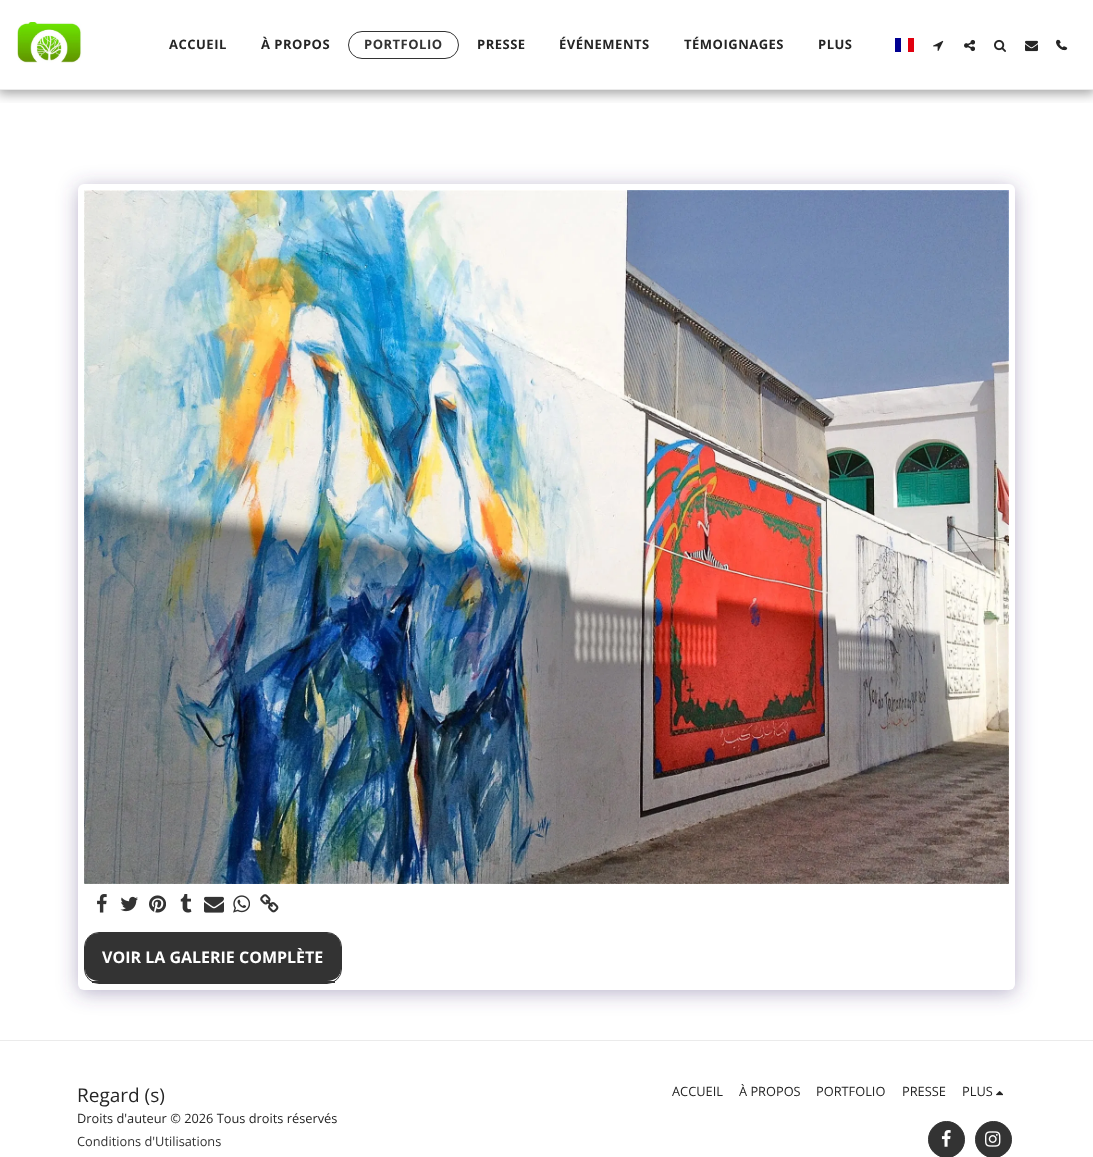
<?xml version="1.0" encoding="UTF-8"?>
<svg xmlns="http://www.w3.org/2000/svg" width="1093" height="1157">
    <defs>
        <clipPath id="clip1"><rect x="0" y="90" width="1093" height="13"/></clipPath>
        <filter id="blur1" x="-50%" y="-200%" width="200%" height="500%"><feGaussianBlur stdDeviation="6"/></filter>
        <filter id="blur2" x="-50%" y="-200%" width="200%" height="500%"><feGaussianBlur stdDeviation="10"/></filter>
    </defs>
    <rect width="100%" height="100%" fill="#FFFFFF"/>
    <g clip-path="url(#clip1)">
        <rect x="-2" y="0" width="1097" height="94" fill="#000000" fill-opacity="0.35" filter="url(#blur1)"/>
    </g>
    <rect x="0" y="89" width="1093" height="1" fill="#EBEBEB"/>
    <image x="17" y="22" width="65" height="41" href="img_01.png"/>
    <text x="169" y="49" font-family="Open Sans" font-size="13" font-weight="700" letter-spacing="0.5" fill="#252525">ACCUEIL</text>
    <text x="261" y="49" font-family="Open Sans" font-size="13" font-weight="700" letter-spacing="0.5" fill="#252525">À PROPOS</text>
    <rect x="348.5" y="31.5" width="110" height="27" rx="13.5" fill="none" stroke="#333333"/>
    <text x="364" y="49" font-family="Open Sans" font-size="13" font-weight="700" letter-spacing="0.5" fill="#333333">PORTFOLIO</text>
    <text x="477" y="49" font-family="Open Sans" font-size="13" font-weight="700" letter-spacing="0.5" fill="#252525">PRESSE</text>
    <text x="559" y="49" font-family="Open Sans" font-size="13" font-weight="700" letter-spacing="0.5" fill="#252525">ÉVÉNEMENTS</text>
    <text x="684" y="49" font-family="Open Sans" font-size="13" font-weight="700" letter-spacing="0.5" fill="#252525">TÉMOIGNAGES</text>
    <text x="818" y="49" font-family="Open Sans" font-size="13" font-weight="700" letter-spacing="0.5" fill="#252525">PLUS</text>
    <rect x="895" y="38" width="6" height="14" fill="#000091"/>
    <rect x="908" y="38" width="6" height="14" fill="#E1000F"/>
    <image x="933" y="40" width="11" height="11" href="img_02.png"/>
    <image x="964" y="39" width="11" height="13" href="img_03.png"/>
    <image x="994" y="39" width="12" height="13" href="img_04.png"/>
    <image x="1025" y="40" width="13" height="12" href="img_05.png"/>
    <image x="1057" y="40" width="11" height="11" href="img_06.png"/>
    <image x="1056" y="39" width="11" height="11" href="img_07.png"/>
    <rect x="78" y="187" width="937" height="806" rx="6" fill="#4D3F7A" fill-opacity="0.4" filter="url(#blur2)"/>
    <rect x="78" y="184" width="937" height="806" rx="6" fill="#FFFFFF"/>
    <image x="84" y="190" width="925" height="694" href="img_08.png"/>
    <image x="97" y="894" width="10" height="19" href="img_09.png"/>
    <image x="120" y="896" width="18" height="16" href="img_10.png"/>
    <image x="149" y="895" width="17" height="18" href="img_11.png"/>
    <image x="180" y="894" width="12" height="19" href="img_12.png"/>
    <image x="204" y="896" width="20" height="17" href="img_13.png"/>
    <image x="233" y="895" width="17" height="18" href="img_14.png"/>
    <image x="260" y="894" width="19" height="19" href="img_15.png"/>
    <path d="M 99 933 H 327 C 335 933 341 939 341 947 V 969 C 341 976 335 981 327 981 H 99 C 91 981 85 976 85 969 V 947 C 85 939 91 933 99 933 Z" fill="#333333"/>
    <rect x="84.5" y="932.5" width="257" height="51" rx="14.5" fill="none" stroke="#333333"/>
    <rect x="92" y="981" width="243" height="2" fill="#333333"/>
    <text x="102" y="963" font-family="Open Sans" font-size="16" font-weight="700" fill="#FFFFFF">VOIR LA GALERIE COMPLÈTE</text>
    <rect x="0" y="1040" width="1093" height="1" fill="#EBEBEB"/>
    <text x="77" y="1102" font-family="Open Sans" font-size="19" fill="#252525">Regard (s)</text>
    <text x="77" y="1123" font-family="Open Sans" font-size="12.8" fill="#252525">Droits d'auteur © 2026 Tous droits réservés</text>
    <text x="77" y="1146" font-family="Open Sans" font-size="12.8" fill="#333333">Conditions d'Utilisations</text>
    <text x="672" y="1096" font-family="Open Sans" font-size="12.8" fill="#252525">ACCUEIL</text>
    <text x="739" y="1096" font-family="Open Sans" font-size="12.8" fill="#252525">À PROPOS</text>
    <text x="816" y="1096" font-family="Open Sans" font-size="12.8" fill="#252525">PORTFOLIO</text>
    <text x="902" y="1096" font-family="Open Sans" font-size="12.8" fill="#252525">PRESSE</text>
    <text x="962" y="1096" font-family="Open Sans" font-size="12.8" fill="#252525">PLUS</text>
    <image x="996" y="1091" width="7" height="5" href="img_16.png"/>
    <circle cx="946.5" cy="1139.5" r="18" fill="#333333" stroke="#333333"/>
    <image x="941" y="1130" width="10" height="17" href="img_17.png"/>
    <circle cx="993.5" cy="1139.5" r="18" fill="#333333" stroke="#333333"/>
    <image x="985" y="1131" width="16" height="16" href="img_18.png"/>
</svg>
